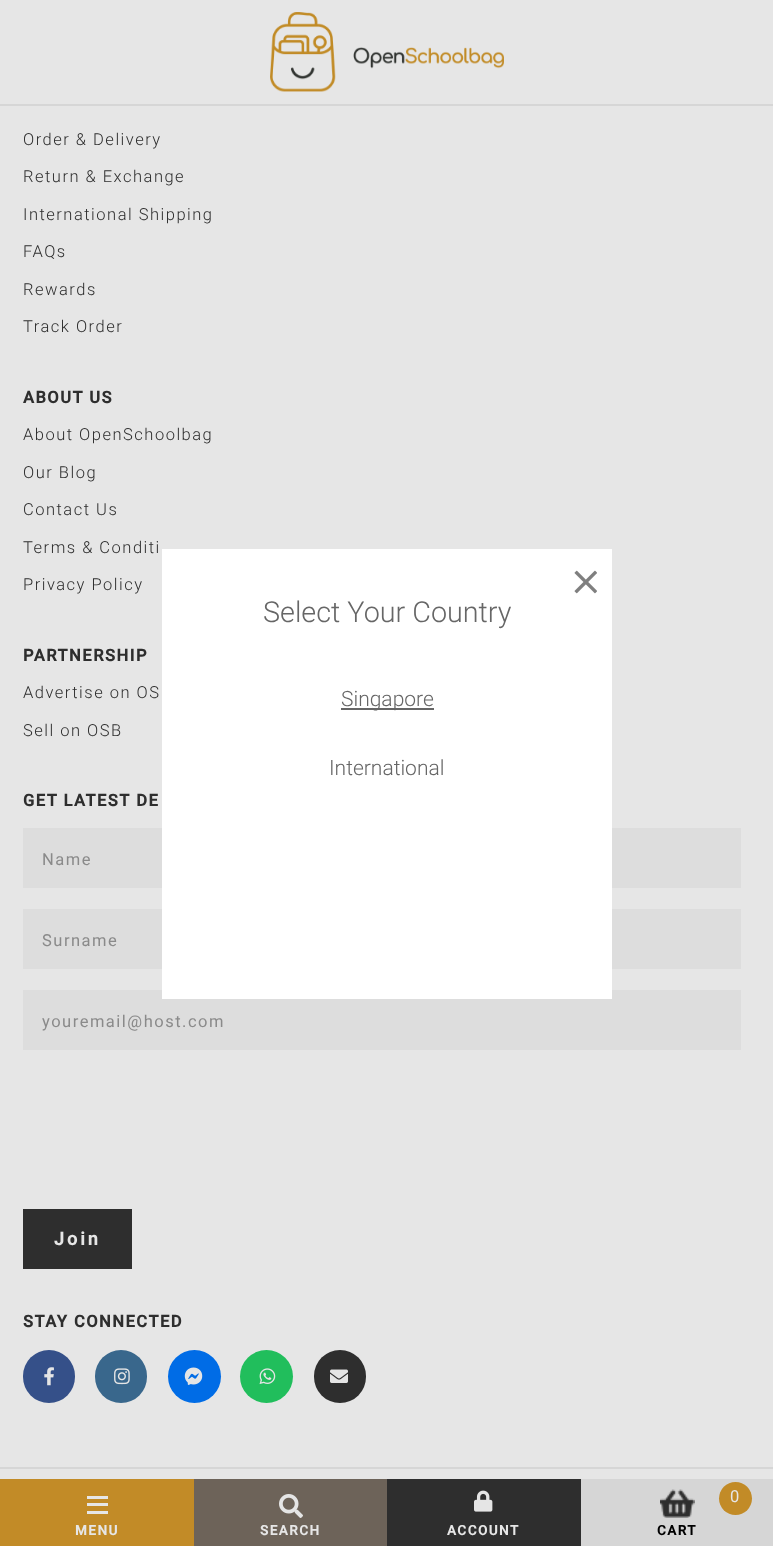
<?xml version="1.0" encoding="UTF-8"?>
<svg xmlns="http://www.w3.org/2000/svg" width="773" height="1546">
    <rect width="100%" height="100%" fill="#E6E6E6"/>
    <rect x="0" y="1467" width="773" height="2" fill="#D6D6D6"/>
    <text x="23" y="145" font-family="Roboto" font-size="16.5" font-weight="300" letter-spacing="1.5" fill="#2E2E2E">Order &amp; Delivery</text>
    <text x="23" y="182" font-family="Roboto" font-size="16.5" font-weight="300" letter-spacing="1.5" fill="#2E2E2E">Return &amp; Exchange</text>
    <text x="23" y="220" font-family="Roboto" font-size="16.5" font-weight="300" letter-spacing="1.5" fill="#2E2E2E">International Shipping</text>
    <text x="23" y="257" font-family="Roboto" font-size="16.5" font-weight="300" letter-spacing="1.5" fill="#2E2E2E">FAQs</text>
    <text x="23" y="295" font-family="Roboto" font-size="16.5" font-weight="300" letter-spacing="1.5" fill="#2E2E2E">Rewards</text>
    <text x="23" y="332" font-family="Roboto" font-size="16.5" font-weight="300" letter-spacing="1.5" fill="#2E2E2E">Track Order</text>
    <text x="23" y="403" font-family="Roboto" font-size="16.5" font-weight="700" letter-spacing="1.5" fill="#2E2E2E">ABOUT US</text>
    <text x="23" y="440" font-family="Roboto" font-size="16.5" font-weight="300" letter-spacing="1.5" fill="#2E2E2E">About OpenSchoolbag</text>
    <text x="23" y="478" font-family="Roboto" font-size="16.5" font-weight="300" letter-spacing="1.5" fill="#2E2E2E">Our Blog</text>
    <text x="23" y="515" font-family="Roboto" font-size="16.5" font-weight="300" letter-spacing="1.5" fill="#2E2E2E">Contact Us</text>
    <text x="23" y="553" font-family="Roboto" font-size="16.5" font-weight="300" letter-spacing="1.5" fill="#2E2E2E">Terms &amp; Conditi</text>
    <text x="23" y="590" font-family="Roboto" font-size="16.5" font-weight="300" letter-spacing="1.5" fill="#2E2E2E">Privacy Policy</text>
    <text x="23" y="661" font-family="Roboto" font-size="16.5" font-weight="700" letter-spacing="1.5" fill="#2E2E2E">PARTNERSHIP</text>
    <text x="23" y="698" font-family="Roboto" font-size="16.5" font-weight="300" letter-spacing="1.5" fill="#2E2E2E">Advertise on OS</text>
    <text x="23" y="736" font-family="Roboto" font-size="16.5" font-weight="300" letter-spacing="1.5" fill="#2E2E2E">Sell on OSB</text>
    <text x="23" y="806" font-family="Roboto" font-size="16.5" font-weight="700" letter-spacing="1.5" fill="#2E2E2E">GET LATEST DE</text>
    <rect x="23" y="828" width="718" height="60" fill="#DDDDDD"/>
    <text x="42" y="865" font-family="Roboto" font-size="16.5" letter-spacing="1.5" fill="#8A8A8A">Name</text>
    <rect x="23" y="909" width="718" height="60" fill="#DDDDDD"/>
    <text x="42" y="946" font-family="Roboto" font-size="16.5" letter-spacing="1.5" fill="#8A8A8A">Surname</text>
    <rect x="23" y="990" width="718" height="60" fill="#DDDDDD"/>
    <text x="42" y="1027" font-family="Roboto" font-size="16.5" letter-spacing="1.5" fill="#8A8A8A">youremail@host.com</text>
    <rect x="23" y="1209" width="109" height="60" fill="#2E2E2E"/>
    <text x="54" y="1245" font-family="Roboto" font-size="18" font-weight="700" letter-spacing="3" fill="#E6E6E6">Join</text>
    <text x="23" y="1327" font-family="Roboto" font-size="16.5" font-weight="700" letter-spacing="1.5" fill="#2E2E2E">STAY CONNECTED</text>
    <rect x="23" y="1350" width="52" height="53" rx="26" fill="#355089"/>
    <image x="44" y="1367" width="10" height="19" href="img_01.png"/>
    <rect x="95" y="1350" width="52" height="53" rx="26" fill="#39678C"/>
    <image x="114" y="1368" width="16" height="17" href="img_02.png"/>
    <circle cx="194.5" cy="1376.5" r="26.5" fill="#006CE6"/>
    <image x="184" y="1367" width="19" height="18" href="img_03.png"/>
    <circle cx="266.5" cy="1376.5" r="26.5" fill="#21BE5C"/>
    <image x="259" y="1368" width="17" height="17" href="img_04.png"/>
    <rect x="314" y="1350" width="52" height="53" rx="26" fill="#2E2E2E"/>
    <image x="330" y="1369" width="18" height="14" href="img_05.png"/>
    <rect x="0" y="104" width="773" height="2" fill="#D6D6D6"/>
    <image x="270" y="12" width="234" height="80" href="img_06.png"/>
    <rect x="0" y="1479" width="194" height="67" fill="#C28B27"/>
    <rect x="87" y="1496" width="21" height="3" fill="#E6E6E6"/>
    <rect x="87" y="1503" width="21" height="3" fill="#E6E6E6"/>
    <rect x="87" y="1511" width="21" height="3" fill="#E6E6E6"/>
    <text x="75" y="1535" font-family="Roboto" font-size="13.5" font-weight="700" letter-spacing="1.5" fill="#E6E6E6">MENU</text>
    <rect x="194" y="1479" width="193" height="67" fill="#6D6359"/>
    <image x="279" y="1494" width="24" height="24" href="img_07.png"/>
    <text x="260" y="1535" font-family="Roboto" font-size="13.5" font-weight="700" letter-spacing="1.5" fill="#E6E6E6">SEARCH</text>
    <rect x="387" y="1479" width="194" height="67" fill="#2E2E2E"/>
    <image x="474" y="1490" width="19" height="22" href="img_08.png"/>
    <text x="447" y="1535" font-family="Roboto" font-size="13.5" font-weight="700" letter-spacing="1.5" fill="#E6E6E6">ACCOUNT</text>
    <rect x="581" y="1479" width="192" height="67" fill="#D6D6D6"/>
    <image x="660" y="1489" width="35" height="29" href="img_09.png"/>
    <circle cx="735.5" cy="1498.5" r="16.5" fill="#C28B27"/>
    <text x="730" y="1502" font-family="Roboto" font-size="16.5" letter-spacing="1.5" fill="#E6E6E6">0</text>
    <text x="657" y="1535" font-family="Roboto" font-size="13.5" font-weight="700" letter-spacing="1.5" fill="#000000">CART</text>
    <rect x="162" y="549" width="450" height="450" fill="#FFFFFF"/>
    <image x="574" y="570" width="23" height="24" href="img_10.png"/>
    <text x="263" y="622" font-family="Roboto" font-size="28.75" font-weight="300" fill="#666666">Select Your Country</text>
    <rect x="341" y="708" width="93" height="2" fill="#666666"/>
    <text x="341" y="706" font-family="Roboto" font-size="21" font-weight="300" fill="#666666">Singapore</text>
    <text x="329" y="775" font-family="Roboto" font-size="21" font-weight="300" fill="#666666">International</text>
</svg>
